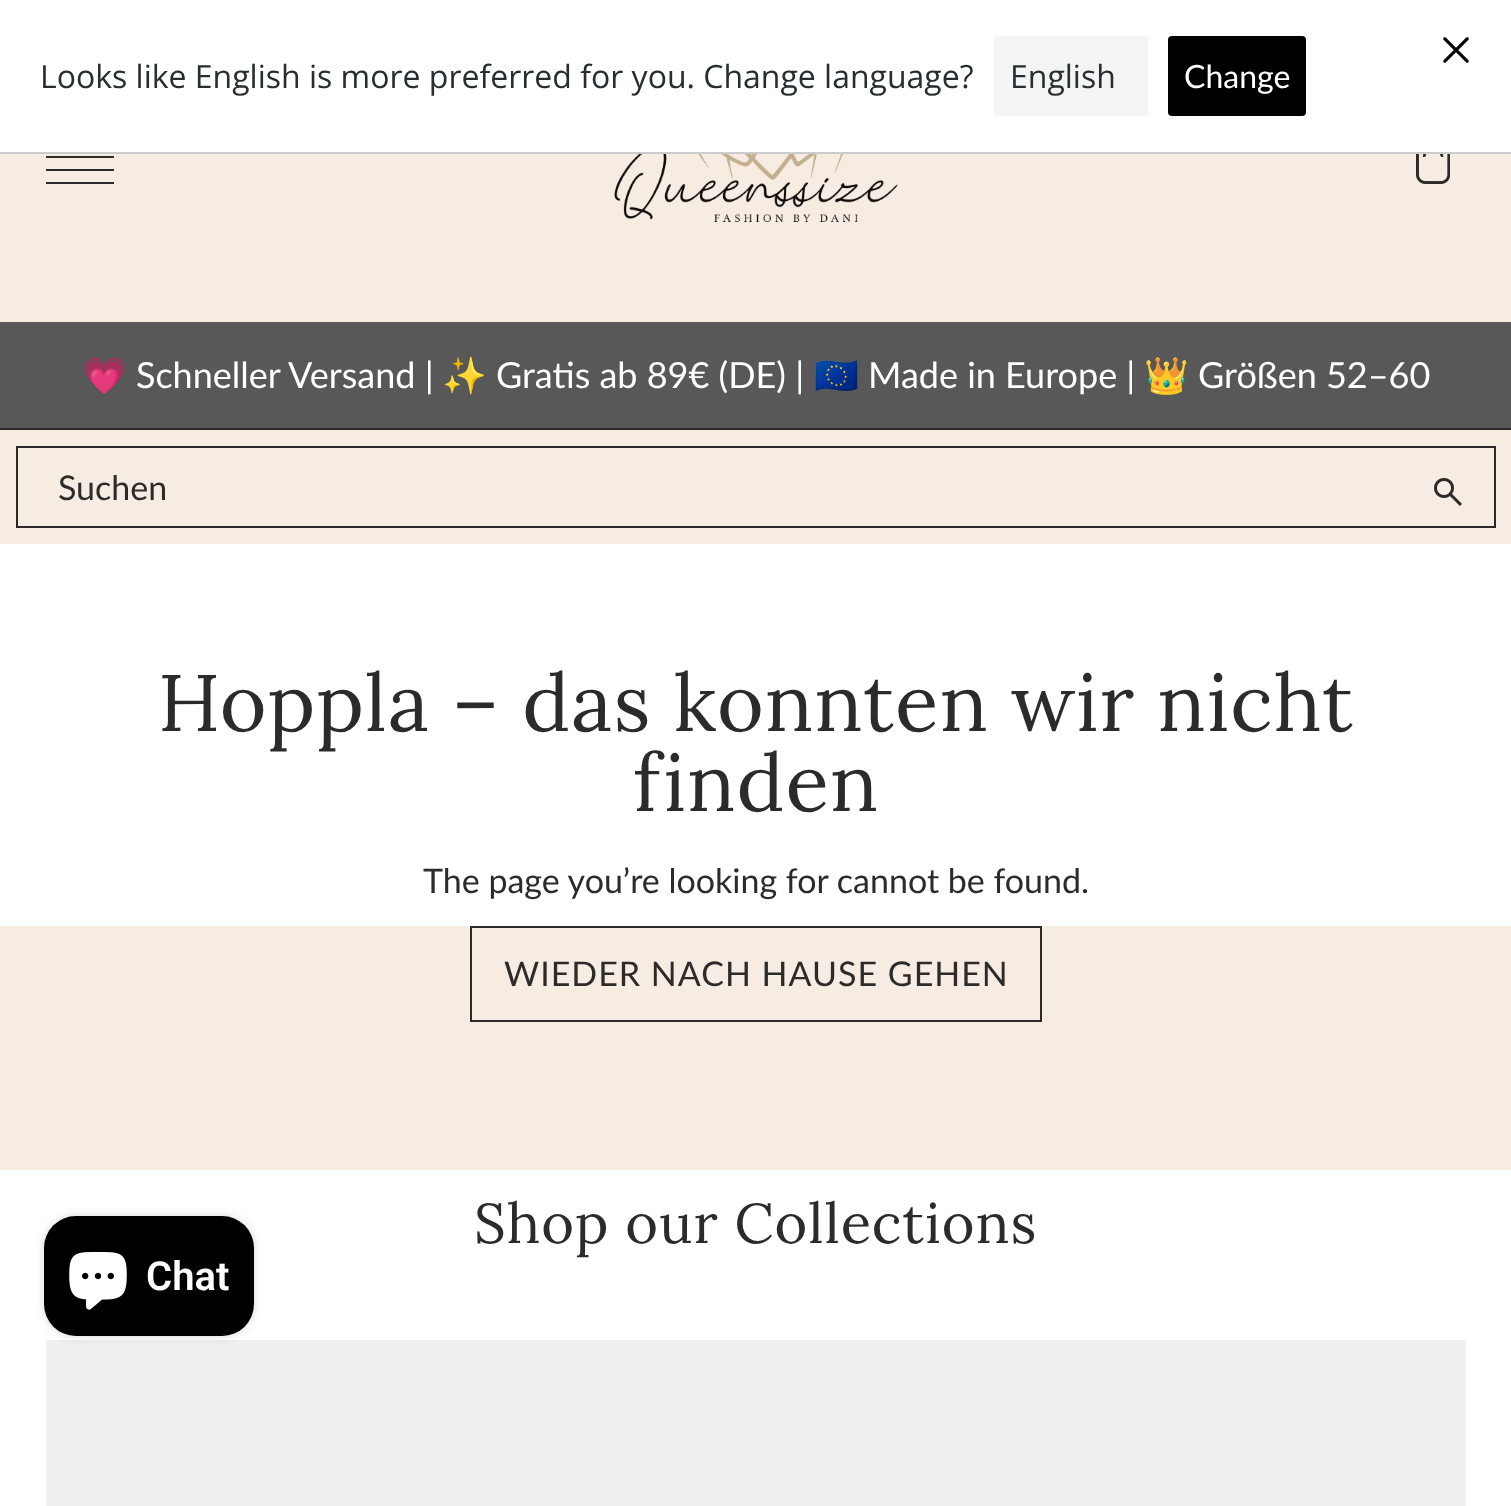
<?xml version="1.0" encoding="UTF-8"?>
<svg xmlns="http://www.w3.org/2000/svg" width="1511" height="1506">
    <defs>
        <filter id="blur1" x="-50%" y="-200%" width="200%" height="500%"><feGaussianBlur stdDeviation="5"/></filter>
    </defs>
    <rect width="100%" height="100%" fill="#F7ECE1"/>
    <rect x="0" y="0" width="1511" height="152" fill="#FFFFFF"/>
    <rect x="0" y="152" width="1511" height="2" fill="#CCCCCC"/>
    <image x="1443" y="37" width="26" height="26" href="img_01.png"/>
    <text x="40" y="88" font-family="Open Sans" font-size="32" fill="#272E31">Looks like English is more preferred for you. Change language?</text>
    <rect x="994" y="36" width="154" height="80" rx="4" fill="#F4F4F4"/>
    <text x="1010" y="88" font-family="Open Sans" font-size="32" fill="#272E31">English</text>
    <rect x="1168" y="36" width="138" height="80" rx="4" fill="#000000"/>
    <text x="1184" y="88" font-family="Lato" font-size="32" fill="#FFFFFF">Change</text>
    <rect x="46" y="156" width="68" height="2" fill="#2B2B2B"/>
    <rect x="46" y="169" width="68" height="2" fill="#2B2B2B"/>
    <rect x="46" y="182" width="68" height="2" fill="#2B2B2B"/>
    <image x="614" y="154" width="284" height="69" href="img_02.png"/>
    <image x="1416" y="154" width="34" height="30" href="img_03.png"/>
    <rect x="0" y="322" width="1511" height="106" fill="#585858"/>
    <text x="82" y="388" font-family="Noto Color Emoji" font-size="36" fill="#FFFFFF">💗</text>
    <text x="136" y="388" font-family="Lato" font-size="36" fill="#FFFFFF">Schneller Versand |</text>
    <text x="442" y="388" font-family="Noto Color Emoji" font-size="36" fill="#FFFFFF">✨</text>
    <text x="496" y="388" font-family="Lato" font-size="36" fill="#FFFFFF">Gratis ab 89€ (DE) |</text>
    <text x="814" y="388" font-family="Noto Color Emoji" font-size="36" fill="#FFFFFF">🇪🇺</text>
    <text x="868" y="388" font-family="Lato" font-size="36" fill="#FFFFFF">Made in Europe |</text>
    <text x="1144" y="388" font-family="Noto Color Emoji" font-size="36" fill="#FFFFFF">👑</text>
    <text x="1198" y="388" font-family="Lato" font-size="36" fill="#FFFFFF">Größen 52–60</text>
    <rect x="0" y="428" width="1511" height="2" fill="#292929"/>
    <rect x="17" y="447" width="1478" height="80" fill="none" stroke="#292929" stroke-width="2"/>
    <text x="58" y="500" font-family="Lato" font-size="34" fill="#2B2B2B">Suchen</text>
    <image x="1434" y="478" width="28" height="28" href="img_04.png"/>
    <rect x="0" y="544" width="1511" height="382" fill="#FFFFFF"/>
    <text x="158" y="731" font-family="Lora" font-size="80" letter-spacing="1" fill="#2B2B2B">Hoppla – das konnten wir nicht</text>
    <text x="633" y="811" font-family="Lora" font-size="80" letter-spacing="1" fill="#2B2B2B">finden</text>
    <text x="423" y="893" font-family="Lato" font-size="34" fill="#2B2B2B">The page you’re looking for cannot be found.</text>
    <rect x="471" y="927" width="570" height="94" fill="none" stroke="#2B2B2B" stroke-width="2"/>
    <text x="504" y="986" font-family="Lato" font-size="34" letter-spacing="1" fill="#2B2B2B">WIEDER NACH HAUSE GEHEN</text>
    <rect x="0" y="1170" width="1511" height="336" fill="#FFFFFF"/>
    <text x="474" y="1243" font-family="Lora" font-size="56" letter-spacing="1" fill="#2B2B2B">Shop our Collections</text>
    <rect x="46" y="1340" width="1420" height="166" fill="#EFEFEF"/>
    <rect x="44" y="1216" width="210" height="120" rx="32" fill="#000000" fill-opacity="0.15" filter="url(#blur1)"/>
    <rect x="44" y="1216" width="210" height="120" rx="32" fill="#000000"/>
    <image x="69" y="1252" width="58" height="58" href="img_05.png"/>
    <text x="146" y="1290" font-family="Roboto" font-size="40" font-weight="600" fill="#FFFFFF">Chat</text>
</svg>
